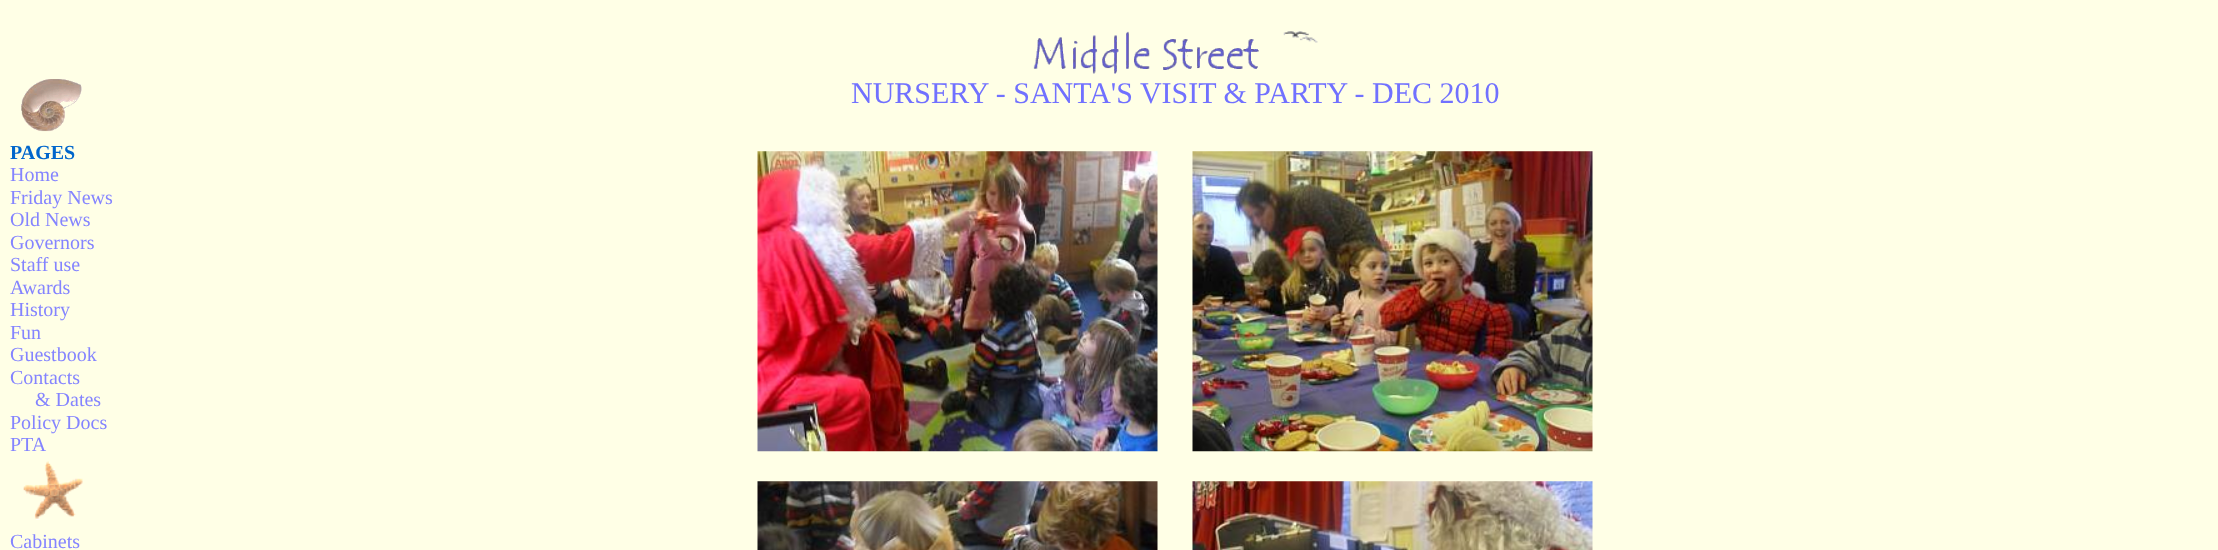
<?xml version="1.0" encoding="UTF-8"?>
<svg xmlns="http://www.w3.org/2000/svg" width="2218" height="550">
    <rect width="100%" height="100%" fill="#FFFFE6"/>
    <image x="1033" y="31" width="226" height="43" href="img_01.png"/>
    <image x="1283" y="31" width="35" height="12" href="img_02.png"/>
    <text x="851" y="103" font-family="Liberation Serif" font-size="30" fill="#7171FF">NURSERY - SANTA'S VISIT &amp; PARTY - DEC 2010</text>
    <image x="757" y="151" width="401" height="301" href="img_03.png"/>
    <image x="1192" y="151" width="401" height="301" href="img_04.png"/>
    <image x="757" y="481" width="401" height="69" href="img_05.png"/>
    <image x="1192" y="481" width="401" height="69" href="img_06.png"/>
    <image x="21" y="79" width="61" height="53" href="img_07.png"/>
    <text x="10" y="159" font-family="Liberation Serif" font-size="20" font-weight="700" fill="#0066CC">PAGES</text>
    <text font-family="Liberation Serif" font-size="20" fill="#8484FF">
        <tspan x="10" y="181">Home</tspan>
        <tspan x="10" y="204">Friday News</tspan>
        <tspan x="10" y="226">Old News</tspan>
        <tspan x="10" y="249">Governors</tspan>
        <tspan x="10" y="271">Staff use</tspan>
        <tspan x="10" y="294">Awards</tspan>
        <tspan x="10" y="316">History</tspan>
        <tspan x="10" y="339">Fun</tspan>
        <tspan x="10" y="361">Guestbook</tspan>
        <tspan x="10" y="384">Contacts</tspan>
    </text>
    <text x="35" y="406" font-family="Liberation Serif" font-size="20" fill="#8484FF">&amp; Dates</text>
    <text font-family="Liberation Serif" font-size="20" fill="#8484FF">
        <tspan x="10" y="429">Policy Docs</tspan>
        <tspan x="10" y="451">PTA</tspan>
    </text>
    <image x="23" y="461" width="60" height="59" href="img_08.png"/>
    <text x="10" y="548" font-family="Liberation Serif" font-size="20" fill="#8484FF">Cabinets</text>
</svg>
